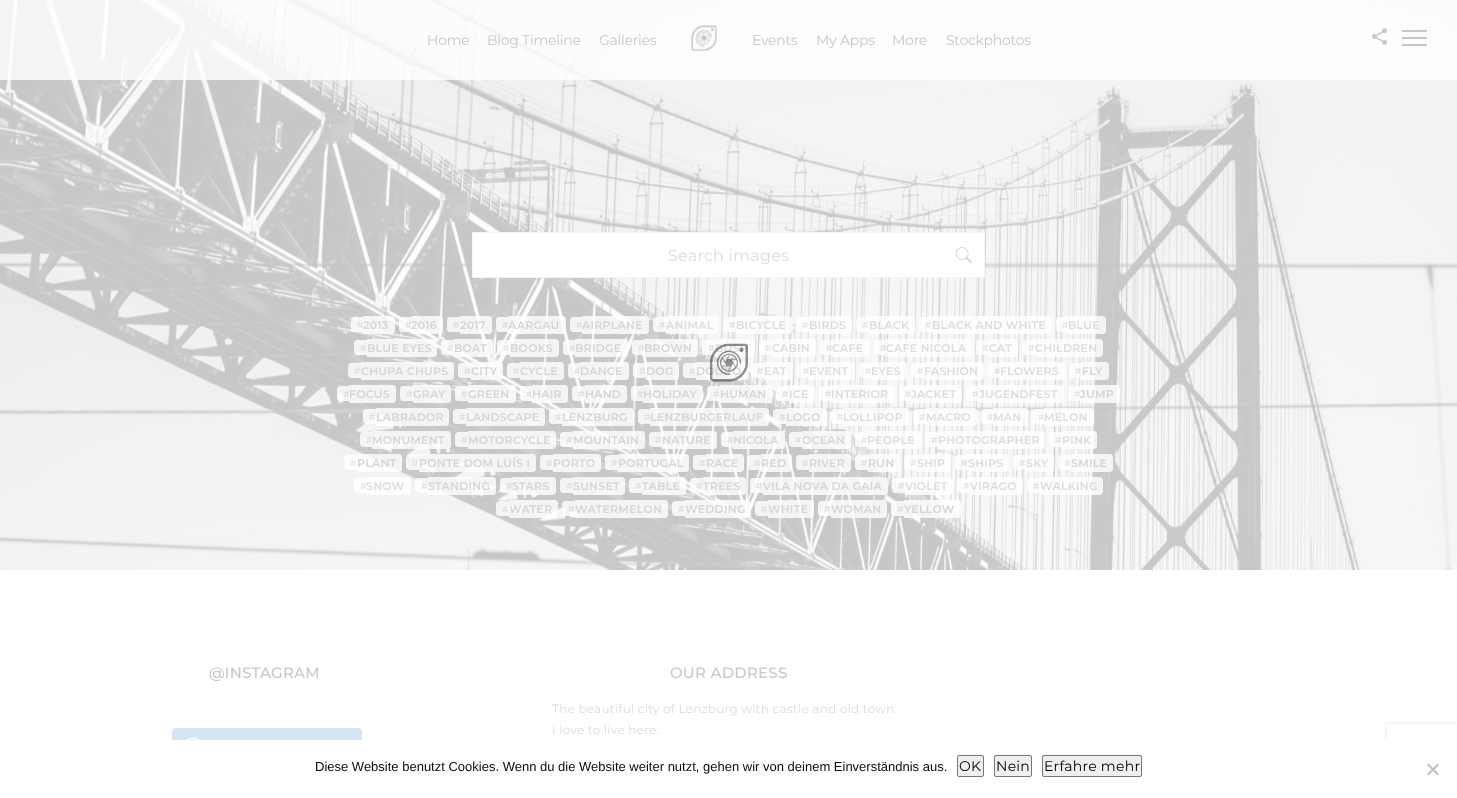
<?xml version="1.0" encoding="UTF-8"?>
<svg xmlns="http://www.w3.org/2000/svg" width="1457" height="798">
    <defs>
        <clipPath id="clip1"><path d="M 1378 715 H 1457 V 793 H 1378 Z M 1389 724 H 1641 C 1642 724 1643 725 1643 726 V 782 C 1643 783 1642 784 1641 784 H 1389 C 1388 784 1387 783 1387 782 V 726 C 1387 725 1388 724 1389 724 Z" clip-rule="evenodd"/></clipPath>
        <filter id="blur1" x="-50%" y="-200%" width="200%" height="500%"><feGaussianBlur stdDeviation="2.5"/></filter>
    </defs>
    <rect width="100%" height="100%" fill="#FFFFFF"/>
    <image x="0" y="0" width="1457" height="570" href="img_03.png"/>
    <rect x="0" y="0" width="1457" height="80" fill="#FFFFFF" fill-opacity="0.8"/>
    <text x="427" y="45" font-family="Montserrat" font-size="14" letter-spacing="-0.25" fill="#C7C7C7">Home</text>
    <text x="487" y="45" font-family="Montserrat" font-size="14" letter-spacing="-0.25" fill="#C7C7C7">Blog Timeline</text>
    <text x="599" y="45" font-family="Montserrat" font-size="14" letter-spacing="-0.25" fill="#C7C7C7">Galleries</text>
    <image x="691" y="24" width="26" height="28" href="img_01.png"/>
    <text x="752" y="45" font-family="Montserrat" font-size="14" letter-spacing="-0.25" fill="#C7C7C7">Events</text>
    <text x="816" y="45" font-family="Montserrat" font-size="14" letter-spacing="-0.25" fill="#C7C7C7">My Apps</text>
    <text x="892" y="45" font-family="Montserrat" font-size="14" letter-spacing="-0.25" fill="#C7C7C7">More</text>
    <text x="946" y="45" font-family="Montserrat" font-size="14" letter-spacing="-0.25" fill="#C7C7C7">Stockphotos</text>
    <image x="1372" y="28" width="15" height="17" href="img_02.png"/>
    <rect x="1402" y="37" width="25" height="2" fill="#C7C7C7"/>
    <rect x="1402" y="30" width="25" height="2" fill="#C7C7C7"/>
    <rect x="1402" y="44" width="25" height="2" fill="#C7C7C7"/>
    <rect x="472.5" y="232.5" width="512" height="45" fill="#FFFFFF" stroke="#F4F4F4"/>
    <text x="668" y="261" font-family="Montserrat" font-size="16" letter-spacing="0.25" fill="#DCDCDC">Search images</text>
    <image x="956" y="247" width="16" height="16" href="img_04.png"/>
    <path d="M 354 317 H 363 V 332 H 354 C 352.5 332 351 330.5 351 329 V 320 C 351 318.5 352.5 317 354 317 Z" fill="#FFFFFF" fill-opacity="0.8"/>
    <text x="357" y="328" font-family="Montserrat" font-size="9" font-weight="600" letter-spacing="0.25" fill="#DCDCDC">#</text>
    <path d="M 363 316 H 392 C 393.5 316 395 317.5 395 319 V 331 C 395 332.5 393.5 334 392 334 H 363 Z" fill="#FFFFFF" fill-opacity="0.8"/>
    <text x="363" y="329" font-family="Montserrat" font-size="11" font-weight="600" letter-spacing="0.25" fill="#D5D5D5">2013</text>
    <path d="M 402 317 H 411 V 332 H 402 C 400.5 332 399 330.5 399 329 V 320 C 399 318.5 400.5 317 402 317 Z" fill="#FFFFFF" fill-opacity="0.8"/>
    <text x="405" y="328" font-family="Montserrat" font-size="9" font-weight="600" letter-spacing="0.25" fill="#DCDCDC">#</text>
    <path d="M 411 316 H 440 C 441.5 316 443 317.5 443 319 V 331 C 443 332.5 441.5 334 440 334 H 411 Z" fill="#FFFFFF" fill-opacity="0.8"/>
    <text x="411" y="329" font-family="Montserrat" font-size="11" font-weight="600" letter-spacing="0.25" fill="#D5D5D5">2016</text>
    <path d="M 450 317 H 460 V 332 H 450 C 448.5 332 447 330.5 447 329 V 320 C 447 318.5 448.5 317 450 317 Z" fill="#FFFFFF" fill-opacity="0.8"/>
    <text x="453" y="328" font-family="Montserrat" font-size="9" font-weight="600" letter-spacing="0.25" fill="#DCDCDC">#</text>
    <path d="M 460 316 H 489 C 490.5 316 492 317.5 492 319 V 331 C 492 332.5 490.5 334 489 334 H 460 Z" fill="#FFFFFF" fill-opacity="0.8"/>
    <text x="460" y="329" font-family="Montserrat" font-size="11" font-weight="600" letter-spacing="0.25" fill="#D5D5D5">2017</text>
    <path d="M 499 317 H 508 V 332 H 499 C 497.5 332 496 330.5 496 329 V 320 C 496 318.5 497.5 317 499 317 Z" fill="#FFFFFF" fill-opacity="0.8"/>
    <text x="502" y="328" font-family="Montserrat" font-size="9" font-weight="600" letter-spacing="0.25" fill="#DCDCDC">#</text>
    <path d="M 508 316 H 563 C 564.5 316 566 317.5 566 319 V 331 C 566 332.5 564.5 334 563 334 H 508 Z" fill="#FFFFFF" fill-opacity="0.8"/>
    <text x="508" y="329" font-family="Montserrat" font-size="11" font-weight="600" letter-spacing="0.25" fill="#D5D5D5">AARGAU</text>
    <path d="M 573 317 H 582 V 332 H 573 C 571.5 332 570 330.5 570 329 V 320 C 570 318.5 571.5 317 573 317 Z" fill="#FFFFFF" fill-opacity="0.8"/>
    <text x="576" y="328" font-family="Montserrat" font-size="9" font-weight="600" letter-spacing="0.25" fill="#DCDCDC">#</text>
    <path d="M 582 316 H 646 C 647.5 316 649 317.5 649 319 V 331 C 649 332.5 647.5 334 646 334 H 582 Z" fill="#FFFFFF" fill-opacity="0.8"/>
    <text x="582" y="329" font-family="Montserrat" font-size="11" font-weight="600" letter-spacing="0.25" fill="#D5D5D5">AIRPLANE</text>
    <path d="M 656 317 H 666 V 332 H 656 C 654.5 332 653 330.5 653 329 V 320 C 653 318.5 654.5 317 656 317 Z" fill="#FFFFFF" fill-opacity="0.8"/>
    <path d="M 666 316 H 716 C 717.5 316 719 317.5 719 319 V 331 C 719 332.5 717.5 334 716 334 H 666 Z" fill="#FFFFFF" fill-opacity="0.8"/>
    <text x="666" y="329" font-family="Montserrat" font-size="11" font-weight="600" letter-spacing="0.25" fill="#DCDCDC">ANIMAL</text>
    <text x="659" y="328" font-family="Montserrat" font-size="9" font-weight="600" letter-spacing="0.25" fill="#DCDCDC">#</text>
    <path d="M 726 317 H 736 V 332 H 726 C 724.5 332 723 330.5 723 329 V 320 C 723 318.5 724.5 317 726 317 Z" fill="#FFFFFF" fill-opacity="0.8"/>
    <text x="729" y="328" font-family="Montserrat" font-size="9" font-weight="600" letter-spacing="0.25" fill="#DCDCDC">#</text>
    <path d="M 736 316 H 789 C 790.5 316 792 317.5 792 319 V 331 C 792 332.5 790.5 334 789 334 H 736 Z" fill="#FFFFFF" fill-opacity="0.8"/>
    <text x="736" y="329" font-family="Montserrat" font-size="11" font-weight="600" letter-spacing="0.25" fill="#DCDCDC">BICYCLE</text>
    <path d="M 799 317 H 809 V 332 H 799 C 797.5 332 796 330.5 796 329 V 320 C 796 318.5 797.5 317 799 317 Z" fill="#FFFFFF" fill-opacity="0.8"/>
    <text x="802" y="328" font-family="Montserrat" font-size="9" font-weight="600" letter-spacing="0.25" fill="#E2E2E2">#</text>
    <path d="M 809 316 H 849 C 850.5 316 852 317.5 852 319 V 331 C 852 332.5 850.5 334 849 334 H 809 Z" fill="#FFFFFF" fill-opacity="0.8"/>
    <text x="809" y="329" font-family="Montserrat" font-size="11" font-weight="600" letter-spacing="0.25" fill="#DCDCDC">BIRDS</text>
    <path d="M 859 317 H 869 V 332 H 859 C 857.5 332 856 330.5 856 329 V 320 C 856 318.5 857.5 317 859 317 Z" fill="#FFFFFF" fill-opacity="0.8"/>
    <text x="862" y="328" font-family="Montserrat" font-size="9" font-weight="600" letter-spacing="0.25" fill="#E2E2E2">#</text>
    <path d="M 869 316 H 912 C 913.5 316 915 317.5 915 319 V 331 C 915 332.5 913.5 334 912 334 H 869 Z" fill="#FFFFFF" fill-opacity="0.8"/>
    <text x="869" y="329" font-family="Montserrat" font-size="11" font-weight="600" letter-spacing="0.25" fill="#DCDCDC">BLACK</text>
    <path d="M 922 317 H 932 V 332 H 922 C 920.5 332 919 330.5 919 329 V 320 C 919 318.5 920.5 317 922 317 Z" fill="#FFFFFF" fill-opacity="0.8"/>
    <text x="925" y="328" font-family="Montserrat" font-size="9" font-weight="600" letter-spacing="0.25" fill="#E2E2E2">#</text>
    <path d="M 932 316 H 1049 C 1050.5 316 1052 317.5 1052 319 V 331 C 1052 332.5 1050.5 334 1049 334 H 932 Z" fill="#FFFFFF" fill-opacity="0.8"/>
    <text x="932" y="329" font-family="Montserrat" font-size="11" font-weight="600" letter-spacing="0.25" fill="#DCDCDC">BLACK AND WHITE</text>
    <path d="M 1059 317 H 1068 V 332 H 1059 C 1057.5 332 1056 330.5 1056 329 V 320 C 1056 318.5 1057.5 317 1059 317 Z" fill="#FFFFFF" fill-opacity="0.8"/>
    <text x="1062" y="328" font-family="Montserrat" font-size="9" font-weight="600" letter-spacing="0.25" fill="#E2E2E2">#</text>
    <path d="M 1068 316 H 1103 C 1104.5 316 1106 317.5 1106 319 V 331 C 1106 332.5 1104.5 334 1103 334 H 1068 Z" fill="#FFFFFF" fill-opacity="0.8"/>
    <text x="1068" y="329" font-family="Montserrat" font-size="11" font-weight="600" letter-spacing="0.25" fill="#DCDCDC">BLUE</text>
    <path d="M 357 340 H 367 V 355 H 357 C 355.5 355 354 353.5 354 352 V 343 C 354 341.5 355.5 340 357 340 Z" fill="#FFFFFF" fill-opacity="0.8"/>
    <text x="360" y="351" font-family="Montserrat" font-size="9" font-weight="600" letter-spacing="0.25" fill="#DCDCDC">#</text>
    <path d="M 367 339 H 434 C 435.5 339 437 340.5 437 342 V 354 C 437 355.5 435.5 357 434 357 H 367 Z" fill="#FFFFFF" fill-opacity="0.8"/>
    <text x="367" y="352" font-family="Montserrat" font-size="11" font-weight="600" letter-spacing="0.25" fill="#D5D5D5">BLUE EYES</text>
    <path d="M 444 340 H 454 V 355 H 444 C 442.5 355 441 353.5 441 352 V 343 C 441 341.5 442.5 340 444 340 Z" fill="#FFFFFF" fill-opacity="0.8"/>
    <text x="447" y="351" font-family="Montserrat" font-size="9" font-weight="600" letter-spacing="0.25" fill="#DCDCDC">#</text>
    <path d="M 454 339 H 490 C 491.5 339 493 340.5 493 342 V 354 C 493 355.5 491.5 357 490 357 H 454 Z" fill="#FFFFFF" fill-opacity="0.8"/>
    <text x="454" y="352" font-family="Montserrat" font-size="11" font-weight="600" letter-spacing="0.25" fill="#D5D5D5">BOAT</text>
    <path d="M 500 340 H 510 V 355 H 500 C 498.5 355 497 353.5 497 352 V 343 C 497 341.5 498.5 340 500 340 Z" fill="#FFFFFF" fill-opacity="0.8"/>
    <text x="503" y="351" font-family="Montserrat" font-size="9" font-weight="600" letter-spacing="0.25" fill="#E2E2E2">#</text>
    <path d="M 510 339 H 556 C 557.5 339 559 340.5 559 342 V 354 C 559 355.5 557.5 357 556 357 H 510 Z" fill="#FFFFFF" fill-opacity="0.8"/>
    <text x="510" y="352" font-family="Montserrat" font-size="11" font-weight="600" letter-spacing="0.25" fill="#D5D5D5">BOOKS</text>
    <path d="M 566 340 H 575 V 355 H 566 C 564.5 355 563 353.5 563 352 V 343 C 563 341.5 564.5 340 566 340 Z" fill="#FFFFFF" fill-opacity="0.8"/>
    <text x="569" y="351" font-family="Montserrat" font-size="9" font-weight="600" letter-spacing="0.25" fill="#DCDCDC">#</text>
    <path d="M 575 339 H 625 C 626.5 339 628 340.5 628 342 V 354 C 628 355.5 626.5 357 625 357 H 575 Z" fill="#FFFFFF" fill-opacity="0.8"/>
    <text x="575" y="352" font-family="Montserrat" font-size="11" font-weight="600" letter-spacing="0.25" fill="#D5D5D5">BRIDGE</text>
    <path d="M 635 340 H 644 V 355 H 635 C 633.5 355 632 353.5 632 352 V 343 C 632 341.5 633.5 340 635 340 Z" fill="#FFFFFF" fill-opacity="0.8"/>
    <text x="638" y="351" font-family="Montserrat" font-size="9" font-weight="600" letter-spacing="0.25" fill="#DCDCDC">#</text>
    <path d="M 644 339 H 695 C 696.5 339 698 340.5 698 342 V 354 C 698 355.5 696.5 357 695 357 H 644 Z" fill="#FFFFFF" fill-opacity="0.8"/>
    <text x="644" y="352" font-family="Montserrat" font-size="11" font-weight="600" letter-spacing="0.25" fill="#D5D5D5">BROWN</text>
    <path d="M 705 340 H 715 V 355 H 705 C 703.5 355 702 353.5 702 352 V 343 C 702 341.5 703.5 340 705 340 Z" fill="#FFFFFF" fill-opacity="0.8"/>
    <text x="708" y="351" font-family="Montserrat" font-size="9" font-weight="600" letter-spacing="0.25" fill="#DCDCDC">#</text>
    <path d="M 715 339 H 752 C 753.5 339 755 340.5 755 342 V 354 C 755 355.5 753.5 357 752 357 H 715 Z" fill="#FFFFFF" fill-opacity="0.8"/>
    <text x="715" y="352" font-family="Montserrat" font-size="11" font-weight="600" letter-spacing="0.25" fill="#DCDCDC">BUSH</text>
    <path d="M 762 340 H 772 V 355 H 762 C 760.5 355 759 353.5 759 352 V 343 C 759 341.5 760.5 340 762 340 Z" fill="#FFFFFF" fill-opacity="0.8"/>
    <text x="765" y="351" font-family="Montserrat" font-size="9" font-weight="600" letter-spacing="0.25" fill="#E2E2E2">#</text>
    <path d="M 772 339 H 813 C 814.5 339 816 340.5 816 342 V 354 C 816 355.5 814.5 357 813 357 H 772 Z" fill="#FFFFFF" fill-opacity="0.8"/>
    <text x="772" y="352" font-family="Montserrat" font-size="11" font-weight="600" letter-spacing="0.25" fill="#DCDCDC">CABIN</text>
    <path d="M 823 340 H 832 V 355 H 823 C 821.5 355 820 353.5 820 352 V 343 C 820 341.5 821.5 340 823 340 Z" fill="#FFFFFF" fill-opacity="0.8"/>
    <text x="826" y="351" font-family="Montserrat" font-size="9" font-weight="600" letter-spacing="0.25" fill="#DCDCDC">#</text>
    <path d="M 832 339 H 867 C 868.5 339 870 340.5 870 342 V 354 C 870 355.5 868.5 357 867 357 H 832 Z" fill="#FFFFFF" fill-opacity="0.8"/>
    <text x="832" y="352" font-family="Montserrat" font-size="11" font-weight="600" letter-spacing="0.25" fill="#DCDCDC">CAFE</text>
    <path d="M 877 340 H 886 V 355 H 877 C 875.5 355 874 353.5 874 352 V 343 C 874 341.5 875.5 340 877 340 Z" fill="#FFFFFF" fill-opacity="0.8"/>
    <text x="880" y="351" font-family="Montserrat" font-size="9" font-weight="600" letter-spacing="0.25" fill="#DCDCDC">#</text>
    <path d="M 886 339 H 969 C 970.5 339 972 340.5 972 342 V 354 C 972 355.5 970.5 357 969 357 H 886 Z" fill="#FFFFFF" fill-opacity="0.8"/>
    <text x="886" y="352" font-family="Montserrat" font-size="11" font-weight="600" letter-spacing="0.25" fill="#DCDCDC">CAFE NICOLA</text>
    <path d="M 979 340 H 989 V 355 H 979 C 977.5 355 976 353.5 976 352 V 343 C 976 341.5 977.5 340 979 340 Z" fill="#FFFFFF" fill-opacity="0.8"/>
    <text x="982" y="351" font-family="Montserrat" font-size="9" font-weight="600" letter-spacing="0.25" fill="#E2E2E2">#</text>
    <path d="M 989 339 H 1015 C 1016.5 339 1018 340.5 1018 342 V 354 C 1018 355.5 1016.5 357 1015 357 H 989 Z" fill="#FFFFFF" fill-opacity="0.8"/>
    <text x="989" y="352" font-family="Montserrat" font-size="11" font-weight="600" letter-spacing="0.25" fill="#DCDCDC">CAT</text>
    <path d="M 1025 340 H 1035 V 355 H 1025 C 1023.5 355 1022 353.5 1022 352 V 343 C 1022 341.5 1023.5 340 1025 340 Z" fill="#FFFFFF" fill-opacity="0.8"/>
    <text x="1028" y="351" font-family="Montserrat" font-size="9" font-weight="600" letter-spacing="0.25" fill="#E2E2E2">#</text>
    <path d="M 1035 339 H 1100 C 1101.5 339 1103 340.5 1103 342 V 354 C 1103 355.5 1101.5 357 1100 357 H 1035 Z" fill="#FFFFFF" fill-opacity="0.8"/>
    <text x="1035" y="352" font-family="Montserrat" font-size="11" font-weight="600" letter-spacing="0.25" fill="#DCDCDC">CHILDREN</text>
    <path d="M 351 363 H 361 V 378 H 351 C 349.5 378 348 376.5 348 375 V 366 C 348 364.5 349.5 363 351 363 Z" fill="#FFFFFF" fill-opacity="0.8"/>
    <text x="354" y="374" font-family="Montserrat" font-size="9" font-weight="600" letter-spacing="0.25" fill="#DCDCDC">#</text>
    <path d="M 361 362 H 451 C 452.5 362 454 363.5 454 365 V 377 C 454 378.5 452.5 380 451 380 H 361 Z" fill="#FFFFFF" fill-opacity="0.8"/>
    <text x="361" y="375" font-family="Montserrat" font-size="11" font-weight="600" letter-spacing="0.25" fill="#D5D5D5">CHUPA CHUPS</text>
    <path d="M 461 363 H 471 V 378 H 461 C 459.5 378 458 376.5 458 375 V 366 C 458 364.5 459.5 363 461 363 Z" fill="#FFFFFF" fill-opacity="0.8"/>
    <text x="464" y="374" font-family="Montserrat" font-size="9" font-weight="600" letter-spacing="0.25" fill="#DCDCDC">#</text>
    <path d="M 471 362 H 500 C 501.5 362 503 363.5 503 365 V 377 C 503 378.5 501.5 380 500 380 H 471 Z" fill="#FFFFFF" fill-opacity="0.8"/>
    <text x="471" y="375" font-family="Montserrat" font-size="11" font-weight="600" letter-spacing="0.25" fill="#D5D5D5">CITY</text>
    <path d="M 510 363 H 520 V 378 H 510 C 508.5 378 507 376.5 507 375 V 366 C 507 364.5 508.5 363 510 363 Z" fill="#FFFFFF" fill-opacity="0.8"/>
    <text x="513" y="374" font-family="Montserrat" font-size="9" font-weight="600" letter-spacing="0.25" fill="#DCDCDC">#</text>
    <path d="M 520 362 H 561 C 562.5 362 564 363.5 564 365 V 377 C 564 378.5 562.5 380 561 380 H 520 Z" fill="#FFFFFF" fill-opacity="0.8"/>
    <text x="520" y="375" font-family="Montserrat" font-size="11" font-weight="600" letter-spacing="0.25" fill="#D5D5D5">CYCLE</text>
    <path d="M 571 363 H 580 V 378 H 571 C 569.5 378 568 376.5 568 375 V 366 C 568 364.5 569.5 363 571 363 Z" fill="#FFFFFF" fill-opacity="0.8"/>
    <text x="574" y="374" font-family="Montserrat" font-size="9" font-weight="600" letter-spacing="0.25" fill="#DCDCDC">#</text>
    <path d="M 580 362 H 626 C 627.5 362 629 363.5 629 365 V 377 C 629 378.5 627.5 380 626 380 H 580 Z" fill="#FFFFFF" fill-opacity="0.8"/>
    <text x="580" y="375" font-family="Montserrat" font-size="11" font-weight="600" letter-spacing="0.25" fill="#D5D5D5">DANCE</text>
    <path d="M 636 363 H 646 V 378 H 636 C 634.5 378 633 376.5 633 375 V 366 C 633 364.5 634.5 363 636 363 Z" fill="#FFFFFF" fill-opacity="0.8"/>
    <text x="639" y="374" font-family="Montserrat" font-size="9" font-weight="600" letter-spacing="0.25" fill="#DCDCDC">#</text>
    <path d="M 646 362 H 676 C 677.5 362 679 363.5 679 365 V 377 C 679 378.5 677.5 380 676 380 H 646 Z" fill="#FFFFFF" fill-opacity="0.8"/>
    <text x="646" y="375" font-family="Montserrat" font-size="11" font-weight="600" letter-spacing="0.25" fill="#D5D5D5">DOG</text>
    <path d="M 686 363 H 696 V 378 H 686 C 684.5 378 683 376.5 683 375 V 366 C 683 364.5 684.5 363 686 363 Z" fill="#FFFFFF" fill-opacity="0.8"/>
    <text x="689" y="374" font-family="Montserrat" font-size="9" font-weight="600" letter-spacing="0.25" fill="#DCDCDC">#</text>
    <path d="M 696 362 H 744 C 745.5 362 747 363.5 747 365 V 377 C 747 378.5 745.5 380 744 380 H 696 Z" fill="#FFFFFF" fill-opacity="0.8"/>
    <text x="696" y="375" font-family="Montserrat" font-size="11" font-weight="600" letter-spacing="0.25" fill="#D5D5D5">DOURO</text>
    <path d="M 754 363 H 764 V 378 H 754 C 752.5 378 751 376.5 751 375 V 366 C 751 364.5 752.5 363 754 363 Z" fill="#FFFFFF" fill-opacity="0.8"/>
    <text x="757" y="374" font-family="Montserrat" font-size="9" font-weight="600" letter-spacing="0.25" fill="#DCDCDC">#</text>
    <path d="M 764 362 H 790 C 791.5 362 793 363.5 793 365 V 377 C 793 378.5 791.5 380 790 380 H 764 Z" fill="#FFFFFF" fill-opacity="0.8"/>
    <text x="764" y="375" font-family="Montserrat" font-size="11" font-weight="600" letter-spacing="0.25" fill="#DCDCDC">EAT</text>
    <path d="M 800 363 H 809 V 378 H 800 C 798.5 378 797 376.5 797 375 V 366 C 797 364.5 798.5 363 800 363 Z" fill="#FFFFFF" fill-opacity="0.8"/>
    <text x="803" y="374" font-family="Montserrat" font-size="9" font-weight="600" letter-spacing="0.25" fill="#E2E2E2">#</text>
    <path d="M 809 362 H 852 C 853.5 362 855 363.5 855 365 V 377 C 855 378.5 853.5 380 852 380 H 809 Z" fill="#FFFFFF" fill-opacity="0.8"/>
    <text x="809" y="375" font-family="Montserrat" font-size="11" font-weight="600" letter-spacing="0.25" fill="#DCDCDC">EVENT</text>
    <path d="M 862 363 H 871 V 378 H 862 C 860.5 378 859 376.5 859 375 V 366 C 859 364.5 860.5 363 862 363 Z" fill="#FFFFFF" fill-opacity="0.8"/>
    <text x="865" y="374" font-family="Montserrat" font-size="9" font-weight="600" letter-spacing="0.25" fill="#E2E2E2">#</text>
    <path d="M 871 362 H 904 C 905.5 362 907 363.5 907 365 V 377 C 907 378.5 905.5 380 904 380 H 871 Z" fill="#FFFFFF" fill-opacity="0.8"/>
    <text x="871" y="375" font-family="Montserrat" font-size="11" font-weight="600" letter-spacing="0.25" fill="#DCDCDC">EYES</text>
    <path d="M 914 363 H 924 V 378 H 914 C 912.5 378 911 376.5 911 375 V 366 C 911 364.5 912.5 363 914 363 Z" fill="#FFFFFF" fill-opacity="0.8"/>
    <text x="917" y="374" font-family="Montserrat" font-size="9" font-weight="600" letter-spacing="0.25" fill="#E2E2E2">#</text>
    <path d="M 924 362 H 981 C 982.5 362 984 363.5 984 365 V 377 C 984 378.5 982.5 380 981 380 H 924 Z" fill="#FFFFFF" fill-opacity="0.8"/>
    <text x="924" y="375" font-family="Montserrat" font-size="11" font-weight="600" letter-spacing="0.25" fill="#DCDCDC">FASHION</text>
    <path d="M 991 363 H 1000 V 378 H 991 C 989.5 378 988 376.5 988 375 V 366 C 988 364.5 989.5 363 991 363 Z" fill="#FFFFFF" fill-opacity="0.8"/>
    <text x="994" y="374" font-family="Montserrat" font-size="9" font-weight="600" letter-spacing="0.25" fill="#DCDCDC">#</text>
    <path d="M 1000 362 H 1062 C 1063.5 362 1065 363.5 1065 365 V 377 C 1065 378.5 1063.5 380 1062 380 H 1000 Z" fill="#FFFFFF" fill-opacity="0.8"/>
    <text x="1000" y="375" font-family="Montserrat" font-size="11" font-weight="600" letter-spacing="0.25" fill="#DCDCDC">FLOWERS</text>
    <path d="M 1072 363 H 1082 V 378 H 1072 C 1070.5 378 1069 376.5 1069 375 V 366 C 1069 364.5 1070.5 363 1072 363 Z" fill="#FFFFFF" fill-opacity="0.8"/>
    <text x="1075" y="374" font-family="Montserrat" font-size="9" font-weight="600" letter-spacing="0.25" fill="#E2E2E2">#</text>
    <path d="M 1082 362 H 1106 C 1107.5 362 1109 363.5 1109 365 V 377 C 1109 378.5 1107.5 380 1106 380 H 1082 Z" fill="#FFFFFF" fill-opacity="0.8"/>
    <text x="1082" y="375" font-family="Montserrat" font-size="11" font-weight="600" letter-spacing="0.25" fill="#D5D5D5">FLY</text>
    <path d="M 340 386 H 349 V 401 H 340 C 338.5 401 337 399.5 337 398 V 389 C 337 387.5 338.5 386 340 386 Z" fill="#FFFFFF" fill-opacity="0.8"/>
    <text x="343" y="397" font-family="Montserrat" font-size="9" font-weight="600" letter-spacing="0.25" fill="#DCDCDC">#</text>
    <path d="M 349 385 H 393 C 394.5 385 396 386.5 396 388 V 400 C 396 401.5 394.5 403 393 403 H 349 Z" fill="#FFFFFF" fill-opacity="0.8"/>
    <text x="349" y="398" font-family="Montserrat" font-size="11" font-weight="600" letter-spacing="0.25" fill="#D5D5D5">FOCUS</text>
    <path d="M 403 386 H 413 V 401 H 403 C 401.5 401 400 399.5 400 398 V 389 C 400 387.5 401.5 386 403 386 Z" fill="#FFFFFF" fill-opacity="0.8"/>
    <text x="406" y="397" font-family="Montserrat" font-size="9" font-weight="600" letter-spacing="0.25" fill="#DCDCDC">#</text>
    <path d="M 413 385 H 448 C 449.5 385 451 386.5 451 388 V 400 C 451 401.5 449.5 403 448 403 H 413 Z" fill="#FFFFFF" fill-opacity="0.8"/>
    <text x="413" y="398" font-family="Montserrat" font-size="11" font-weight="600" letter-spacing="0.25" fill="#D5D5D5">GRAY</text>
    <path d="M 458 386 H 468 V 401 H 458 C 456.5 401 455 399.5 455 398 V 389 C 455 387.5 456.5 386 458 386 Z" fill="#FFFFFF" fill-opacity="0.8"/>
    <text x="461" y="397" font-family="Montserrat" font-size="9" font-weight="600" letter-spacing="0.25" fill="#DCDCDC">#</text>
    <path d="M 468 385 H 513 C 514.5 385 516 386.5 516 388 V 400 C 516 401.5 514.5 403 513 403 H 468 Z" fill="#FFFFFF" fill-opacity="0.8"/>
    <text x="468" y="398" font-family="Montserrat" font-size="11" font-weight="600" letter-spacing="0.25" fill="#D5D5D5">GREEN</text>
    <path d="M 523 386 H 532 V 401 H 523 C 521.5 401 520 399.5 520 398 V 389 C 520 387.5 521.5 386 523 386 Z" fill="#FFFFFF" fill-opacity="0.8"/>
    <text x="526" y="397" font-family="Montserrat" font-size="9" font-weight="600" letter-spacing="0.25" fill="#DCDCDC">#</text>
    <path d="M 532 385 H 565 C 566.5 385 568 386.5 568 388 V 400 C 568 401.5 566.5 403 565 403 H 532 Z" fill="#FFFFFF" fill-opacity="0.8"/>
    <text x="532" y="398" font-family="Montserrat" font-size="11" font-weight="600" letter-spacing="0.25" fill="#D5D5D5">HAIR</text>
    <path d="M 575 386 H 585 V 401 H 575 C 573.5 401 572 399.5 572 398 V 389 C 572 387.5 573.5 386 575 386 Z" fill="#FFFFFF" fill-opacity="0.8"/>
    <text x="578" y="397" font-family="Montserrat" font-size="9" font-weight="600" letter-spacing="0.25" fill="#DCDCDC">#</text>
    <path d="M 585 385 H 624 C 625.5 385 627 386.5 627 388 V 400 C 627 401.5 625.5 403 624 403 H 585 Z" fill="#FFFFFF" fill-opacity="0.8"/>
    <text x="585" y="398" font-family="Montserrat" font-size="11" font-weight="600" letter-spacing="0.25" fill="#D5D5D5">HAND</text>
    <path d="M 634 386 H 643 V 401 H 634 C 632.5 401 631 399.5 631 398 V 389 C 631 387.5 632.5 386 634 386 Z" fill="#FFFFFF" fill-opacity="0.8"/>
    <text x="637" y="397" font-family="Montserrat" font-size="9" font-weight="600" letter-spacing="0.25" fill="#DCDCDC">#</text>
    <path d="M 643 385 H 700 C 701.5 385 703 386.5 703 388 V 400 C 703 401.5 701.5 403 700 403 H 643 Z" fill="#FFFFFF" fill-opacity="0.8"/>
    <text x="643" y="398" font-family="Montserrat" font-size="11" font-weight="600" letter-spacing="0.25" fill="#D5D5D5">HOLIDAY</text>
    <path d="M 710 386 H 720 V 401 H 710 C 708.5 401 707 399.5 707 398 V 389 C 707 387.5 708.5 386 710 386 Z" fill="#FFFFFF" fill-opacity="0.8"/>
    <text x="713" y="397" font-family="Montserrat" font-size="9" font-weight="600" letter-spacing="0.25" fill="#DCDCDC">#</text>
    <path d="M 720 385 H 769 C 770.5 385 772 386.5 772 388 V 400 C 772 401.5 770.5 403 769 403 H 720 Z" fill="#FFFFFF" fill-opacity="0.8"/>
    <text x="720" y="398" font-family="Montserrat" font-size="11" font-weight="600" letter-spacing="0.25" fill="#D5D5D5">HUMAN</text>
    <path d="M 779 386 H 789 V 401 H 779 C 777.5 401 776 399.5 776 398 V 389 C 776 387.5 777.5 386 779 386 Z" fill="#FFFFFF" fill-opacity="0.8"/>
    <text x="782" y="397" font-family="Montserrat" font-size="9" font-weight="600" letter-spacing="0.25" fill="#DCDCDC">#</text>
    <path d="M 789 385 H 812 C 813.5 385 815 386.5 815 388 V 400 C 815 401.5 813.5 403 812 403 H 789 Z" fill="#FFFFFF" fill-opacity="0.8"/>
    <text x="789" y="398" font-family="Montserrat" font-size="11" font-weight="600" letter-spacing="0.25" fill="#DCDCDC">ICE</text>
    <path d="M 822 386 H 831 V 401 H 822 C 820.5 401 819 399.5 819 398 V 389 C 819 387.5 820.5 386 822 386 Z" fill="#FFFFFF" fill-opacity="0.8"/>
    <text x="825" y="397" font-family="Montserrat" font-size="9" font-weight="600" letter-spacing="0.25" fill="#DCDCDC">#</text>
    <path d="M 831 385 H 892 C 893.5 385 895 386.5 895 388 V 400 C 895 401.5 893.5 403 892 403 H 831 Z" fill="#FFFFFF" fill-opacity="0.8"/>
    <text x="831" y="398" font-family="Montserrat" font-size="11" font-weight="600" letter-spacing="0.25" fill="#DCDCDC">INTERIOR</text>
    <path d="M 902 386 H 911 V 401 H 902 C 900.5 401 899 399.5 899 398 V 389 C 899 387.5 900.5 386 902 386 Z" fill="#FFFFFF" fill-opacity="0.8"/>
    <text x="905" y="397" font-family="Montserrat" font-size="9" font-weight="600" letter-spacing="0.25" fill="#E2E2E2">#</text>
    <path d="M 911 385 H 959 C 960.5 385 962 386.5 962 388 V 400 C 962 401.5 960.5 403 959 403 H 911 Z" fill="#FFFFFF" fill-opacity="0.8"/>
    <text x="911" y="398" font-family="Montserrat" font-size="11" font-weight="600" letter-spacing="0.25" fill="#DCDCDC">JACKET</text>
    <path d="M 969 386 H 979 V 401 H 969 C 967.5 401 966 399.5 966 398 V 389 C 966 387.5 967.5 386 969 386 Z" fill="#FFFFFF" fill-opacity="0.8"/>
    <path d="M 979 385 H 1061 C 1062.5 385 1064 386.5 1064 388 V 400 C 1064 401.5 1062.5 403 1061 403 H 979 Z" fill="#FFFFFF" fill-opacity="0.8"/>
    <text x="979" y="398" font-family="Montserrat" font-size="11" font-weight="600" letter-spacing="0.25" fill="#DCDCDC">JUGENDFEST</text>
    <text x="972" y="397" font-family="Montserrat" font-size="9" font-weight="600" letter-spacing="0.25" fill="#DCDCDC">#</text>
    <path d="M 1071 386 H 1080 V 401 H 1071 C 1069.5 401 1068 399.5 1068 398 V 389 C 1068 387.5 1069.5 386 1071 386 Z" fill="#FFFFFF" fill-opacity="0.8"/>
    <text x="1074" y="397" font-family="Montserrat" font-size="9" font-weight="600" letter-spacing="0.25" fill="#E2E2E2">#</text>
    <path d="M 1080 385 H 1117 C 1118.5 385 1120 386.5 1120 388 V 400 C 1120 401.5 1118.5 403 1117 403 H 1080 Z" fill="#FFFFFF" fill-opacity="0.8"/>
    <text x="1080" y="398" font-family="Montserrat" font-size="11" font-weight="600" letter-spacing="0.25" fill="#D5D5D5">JUMP</text>
    <path d="M 366 409 H 376 V 424 H 366 C 364.5 424 363 422.5 363 421 V 412 C 363 410.5 364.5 409 366 409 Z" fill="#FFFFFF" fill-opacity="0.8"/>
    <text x="369" y="420" font-family="Montserrat" font-size="9" font-weight="600" letter-spacing="0.25" fill="#DCDCDC">#</text>
    <path d="M 376 408 H 446 C 447.5 408 449 409.5 449 411 V 423 C 449 424.5 447.5 426 446 426 H 376 Z" fill="#FFFFFF" fill-opacity="0.8"/>
    <text x="376" y="421" font-family="Montserrat" font-size="11" font-weight="600" letter-spacing="0.25" fill="#D5D5D5">LABRADOR</text>
    <path d="M 456 409 H 466 V 424 H 456 C 454.5 424 453 422.5 453 421 V 412 C 453 410.5 454.5 409 456 409 Z" fill="#FFFFFF" fill-opacity="0.8"/>
    <text x="459" y="420" font-family="Montserrat" font-size="9" font-weight="600" letter-spacing="0.25" fill="#DCDCDC">#</text>
    <path d="M 466 408 H 542 C 543.5 408 545 409.5 545 411 V 423 C 545 424.5 543.5 426 542 426 H 466 Z" fill="#FFFFFF" fill-opacity="0.8"/>
    <text x="466" y="421" font-family="Montserrat" font-size="11" font-weight="600" letter-spacing="0.25" fill="#D5D5D5">LANDSCAPE</text>
    <path d="M 552 409 H 562 V 424 H 552 C 550.5 424 549 422.5 549 421 V 412 C 549 410.5 550.5 409 552 409 Z" fill="#FFFFFF" fill-opacity="0.8"/>
    <text x="555" y="420" font-family="Montserrat" font-size="9" font-weight="600" letter-spacing="0.25" fill="#DCDCDC">#</text>
    <path d="M 562 408 H 631 C 632.5 408 634 409.5 634 411 V 423 C 634 424.5 632.5 426 631 426 H 562 Z" fill="#FFFFFF" fill-opacity="0.8"/>
    <text x="562" y="421" font-family="Montserrat" font-size="11" font-weight="600" letter-spacing="0.25" fill="#D5D5D5">LENZBURG</text>
    <path d="M 641 409 H 650 V 424 H 641 C 639.5 424 638 422.5 638 421 V 412 C 638 410.5 639.5 409 641 409 Z" fill="#FFFFFF" fill-opacity="0.8"/>
    <text x="644" y="420" font-family="Montserrat" font-size="9" font-weight="600" letter-spacing="0.25" fill="#DCDCDC">#</text>
    <path d="M 650 408 H 766 C 767.5 408 769 409.5 769 411 V 423 C 769 424.5 767.5 426 766 426 H 650 Z" fill="#FFFFFF" fill-opacity="0.8"/>
    <text x="650" y="421" font-family="Montserrat" font-size="11" font-weight="600" letter-spacing="0.25" fill="#D5D5D5">LENZBURGERLAUF</text>
    <path d="M 776 409 H 786 V 424 H 776 C 774.5 424 773 422.5 773 421 V 412 C 773 410.5 774.5 409 776 409 Z" fill="#FFFFFF" fill-opacity="0.8"/>
    <text x="779" y="420" font-family="Montserrat" font-size="9" font-weight="600" letter-spacing="0.25" fill="#DCDCDC">#</text>
    <path d="M 786 408 H 824 C 825.5 408 827 409.5 827 411 V 423 C 827 424.5 825.5 426 824 426 H 786 Z" fill="#FFFFFF" fill-opacity="0.8"/>
    <text x="786" y="421" font-family="Montserrat" font-size="11" font-weight="600" letter-spacing="0.25" fill="#D5D5D5">LOGO</text>
    <path d="M 834 409 H 843 V 424 H 834 C 832.5 424 831 422.5 831 421 V 412 C 831 410.5 832.5 409 834 409 Z" fill="#FFFFFF" fill-opacity="0.8"/>
    <text x="837" y="420" font-family="Montserrat" font-size="9" font-weight="600" letter-spacing="0.25" fill="#E2E2E2">#</text>
    <path d="M 843 408 H 906 C 907.5 408 909 409.5 909 411 V 423 C 909 424.5 907.5 426 906 426 H 843 Z" fill="#FFFFFF" fill-opacity="0.8"/>
    <text x="843" y="421" font-family="Montserrat" font-size="11" font-weight="600" letter-spacing="0.25" fill="#DCDCDC">LOLLIPOP</text>
    <path d="M 916 409 H 926 V 424 H 916 C 914.5 424 913 422.5 913 421 V 412 C 913 410.5 914.5 409 916 409 Z" fill="#FFFFFF" fill-opacity="0.8"/>
    <text x="919" y="420" font-family="Montserrat" font-size="9" font-weight="600" letter-spacing="0.25" fill="#E2E2E2">#</text>
    <path d="M 926 408 H 974 C 975.5 408 977 409.5 977 411 V 423 C 977 424.5 975.5 426 974 426 H 926 Z" fill="#FFFFFF" fill-opacity="0.8"/>
    <text x="926" y="421" font-family="Montserrat" font-size="11" font-weight="600" letter-spacing="0.25" fill="#DCDCDC">MACRO</text>
    <path d="M 984 409 H 993 V 424 H 984 C 982.5 424 981 422.5 981 421 V 412 C 981 410.5 982.5 409 984 409 Z" fill="#FFFFFF" fill-opacity="0.8"/>
    <text x="987" y="420" font-family="Montserrat" font-size="9" font-weight="600" letter-spacing="0.25" fill="#E2E2E2">#</text>
    <path d="M 993 408 H 1025 C 1026.5 408 1028 409.5 1028 411 V 423 C 1028 424.5 1026.5 426 1025 426 H 993 Z" fill="#FFFFFF" fill-opacity="0.8"/>
    <text x="993" y="421" font-family="Montserrat" font-size="11" font-weight="600" letter-spacing="0.25" fill="#DCDCDC">MAN</text>
    <path d="M 1035 409 H 1044 V 424 H 1035 C 1033.5 424 1032 422.5 1032 421 V 412 C 1032 410.5 1033.5 409 1035 409 Z" fill="#FFFFFF" fill-opacity="0.8"/>
    <text x="1038" y="420" font-family="Montserrat" font-size="9" font-weight="600" letter-spacing="0.25" fill="#E2E2E2">#</text>
    <path d="M 1044 408 H 1091 C 1092.5 408 1094 409.5 1094 411 V 423 C 1094 424.5 1092.5 426 1091 426 H 1044 Z" fill="#FFFFFF" fill-opacity="0.8"/>
    <text x="1044" y="421" font-family="Montserrat" font-size="11" font-weight="600" letter-spacing="0.25" fill="#DCDCDC">MELON</text>
    <path d="M 363 432 H 372 V 447 H 363 C 361.5 447 360 445.5 360 444 V 435 C 360 433.5 361.5 432 363 432 Z" fill="#FFFFFF" fill-opacity="0.8"/>
    <text x="366" y="443" font-family="Montserrat" font-size="9" font-weight="600" letter-spacing="0.25" fill="#DCDCDC">#</text>
    <path d="M 372 431 H 448 C 449.5 431 451 432.5 451 434 V 446 C 451 447.5 449.5 449 448 449 H 372 Z" fill="#FFFFFF" fill-opacity="0.8"/>
    <text x="372" y="444" font-family="Montserrat" font-size="11" font-weight="600" letter-spacing="0.25" fill="#D5D5D5">MONUMENT</text>
    <path d="M 458 432 H 468 V 447 H 458 C 456.5 447 455 445.5 455 444 V 435 C 455 433.5 456.5 432 458 432 Z" fill="#FFFFFF" fill-opacity="0.8"/>
    <text x="461" y="443" font-family="Montserrat" font-size="9" font-weight="600" letter-spacing="0.25" fill="#DCDCDC">#</text>
    <path d="M 468 431 H 553 C 554.5 431 556 432.5 556 434 V 446 C 556 447.5 554.5 449 553 449 H 468 Z" fill="#FFFFFF" fill-opacity="0.8"/>
    <text x="468" y="444" font-family="Montserrat" font-size="11" font-weight="600" letter-spacing="0.25" fill="#D5D5D5">MOTORCYCLE</text>
    <path d="M 563 432 H 573 V 447 H 563 C 561.5 447 560 445.5 560 444 V 435 C 560 433.5 561.5 432 563 432 Z" fill="#FFFFFF" fill-opacity="0.8"/>
    <text x="566" y="443" font-family="Montserrat" font-size="9" font-weight="600" letter-spacing="0.25" fill="#DCDCDC">#</text>
    <path d="M 573 431 H 642 C 643.5 431 645 432.5 645 434 V 446 C 645 447.5 643.5 449 642 449 H 573 Z" fill="#FFFFFF" fill-opacity="0.8"/>
    <text x="573" y="444" font-family="Montserrat" font-size="11" font-weight="600" letter-spacing="0.25" fill="#D5D5D5">MOUNTAIN</text>
    <path d="M 652 432 H 662 V 447 H 652 C 650.5 447 649 445.5 649 444 V 435 C 649 433.5 650.5 432 652 432 Z" fill="#FFFFFF" fill-opacity="0.8"/>
    <text x="655" y="443" font-family="Montserrat" font-size="9" font-weight="600" letter-spacing="0.25" fill="#DCDCDC">#</text>
    <path d="M 662 431 H 714 C 715.5 431 717 432.5 717 434 V 446 C 717 447.5 715.5 449 714 449 H 662 Z" fill="#FFFFFF" fill-opacity="0.8"/>
    <text x="662" y="444" font-family="Montserrat" font-size="11" font-weight="600" letter-spacing="0.25" fill="#D5D5D5">NATURE</text>
    <path d="M 724 432 H 733 V 447 H 724 C 722.5 447 721 445.5 721 444 V 435 C 721 433.5 722.5 432 724 432 Z" fill="#FFFFFF" fill-opacity="0.8"/>
    <text x="727" y="443" font-family="Montserrat" font-size="9" font-weight="600" letter-spacing="0.25" fill="#DCDCDC">#</text>
    <path d="M 733 431 H 782 C 783.5 431 785 432.5 785 434 V 446 C 785 447.5 783.5 449 782 449 H 733 Z" fill="#FFFFFF" fill-opacity="0.8"/>
    <text x="733" y="444" font-family="Montserrat" font-size="11" font-weight="600" letter-spacing="0.25" fill="#D5D5D5">NICOLA</text>
    <path d="M 792 432 H 802 V 447 H 792 C 790.5 447 789 445.5 789 444 V 435 C 789 433.5 790.5 432 792 432 Z" fill="#FFFFFF" fill-opacity="0.8"/>
    <text x="795" y="443" font-family="Montserrat" font-size="9" font-weight="600" letter-spacing="0.25" fill="#DCDCDC">#</text>
    <path d="M 802 431 H 848 C 849.5 431 851 432.5 851 434 V 446 C 851 447.5 849.5 449 848 449 H 802 Z" fill="#FFFFFF" fill-opacity="0.8"/>
    <text x="802" y="444" font-family="Montserrat" font-size="11" font-weight="600" letter-spacing="0.25" fill="#D5D5D5">OCEAN</text>
    <path d="M 858 432 H 867 V 447 H 858 C 856.5 447 855 445.5 855 444 V 435 C 855 433.5 856.5 432 858 432 Z" fill="#FFFFFF" fill-opacity="0.8"/>
    <text x="861" y="443" font-family="Montserrat" font-size="9" font-weight="600" letter-spacing="0.25" fill="#E2E2E2">#</text>
    <path d="M 867 431 H 918 C 919.5 431 921 432.5 921 434 V 446 C 921 447.5 919.5 449 918 449 H 867 Z" fill="#FFFFFF" fill-opacity="0.8"/>
    <text x="867" y="444" font-family="Montserrat" font-size="11" font-weight="600" letter-spacing="0.25" fill="#DCDCDC">PEOPLE</text>
    <path d="M 928 432 H 938 V 447 H 928 C 926.5 447 925 445.5 925 444 V 435 C 925 433.5 926.5 432 928 432 Z" fill="#FFFFFF" fill-opacity="0.8"/>
    <text x="931" y="443" font-family="Montserrat" font-size="9" font-weight="600" letter-spacing="0.25" fill="#DCDCDC">#</text>
    <path d="M 938 431 H 1042 C 1043.5 431 1045 432.5 1045 434 V 446 C 1045 447.5 1043.5 449 1042 449 H 938 Z" fill="#FFFFFF" fill-opacity="0.8"/>
    <text x="938" y="444" font-family="Montserrat" font-size="11" font-weight="600" letter-spacing="0.25" fill="#DCDCDC">PHOTOGRAPHER</text>
    <path d="M 1052 432 H 1062 V 447 H 1052 C 1050.5 447 1049 445.5 1049 444 V 435 C 1049 433.5 1050.5 432 1052 432 Z" fill="#FFFFFF" fill-opacity="0.8"/>
    <text x="1055" y="443" font-family="Montserrat" font-size="9" font-weight="600" letter-spacing="0.25" fill="#DCDCDC">#</text>
    <path d="M 1062 431 H 1094 C 1095.5 431 1097 432.5 1097 434 V 446 C 1097 447.5 1095.5 449 1094 449 H 1062 Z" fill="#FFFFFF" fill-opacity="0.8"/>
    <text x="1062" y="444" font-family="Montserrat" font-size="11" font-weight="600" letter-spacing="0.25" fill="#DCDCDC">PINK</text>
    <path d="M 347 455 H 357 V 470 H 347 C 345.5 470 344 468.5 344 467 V 458 C 344 456.5 345.5 455 347 455 Z" fill="#FFFFFF" fill-opacity="0.8"/>
    <text x="350" y="466" font-family="Montserrat" font-size="9" font-weight="600" letter-spacing="0.25" fill="#E2E2E2">#</text>
    <path d="M 357 454 H 399 C 400.5 454 402 455.5 402 457 V 469 C 402 470.5 400.5 472 399 472 H 357 Z" fill="#FFFFFF" fill-opacity="0.8"/>
    <text x="357" y="467" font-family="Montserrat" font-size="11" font-weight="600" letter-spacing="0.25" fill="#D5D5D5">PLANT</text>
    <path d="M 409 455 H 419 V 470 H 409 C 407.5 470 406 468.5 406 467 V 458 C 406 456.5 407.5 455 409 455 Z" fill="#FFFFFF" fill-opacity="0.8"/>
    <text x="412" y="466" font-family="Montserrat" font-size="9" font-weight="600" letter-spacing="0.25" fill="#DCDCDC">#</text>
    <path d="M 419 454 H 533 C 534.5 454 536 455.5 536 457 V 469 C 536 470.5 534.5 472 533 472 H 419 Z" fill="#FFFFFF" fill-opacity="0.8"/>
    <text x="419" y="467" font-family="Montserrat" font-size="11" font-weight="600" letter-spacing="0.25" fill="#D5D5D5">PONTE DOM LUÍS I</text>
    <path d="M 543 455 H 553 V 470 H 543 C 541.5 470 540 468.5 540 467 V 458 C 540 456.5 541.5 455 543 455 Z" fill="#FFFFFF" fill-opacity="0.8"/>
    <text x="546" y="466" font-family="Montserrat" font-size="9" font-weight="600" letter-spacing="0.25" fill="#DCDCDC">#</text>
    <path d="M 553 454 H 598 C 599.5 454 601 455.5 601 457 V 469 C 601 470.5 599.5 472 598 472 H 553 Z" fill="#FFFFFF" fill-opacity="0.8"/>
    <text x="553" y="467" font-family="Montserrat" font-size="11" font-weight="600" letter-spacing="0.25" fill="#D5D5D5">PORTO</text>
    <path d="M 608 455 H 618 V 470 H 608 C 606.5 470 605 468.5 605 467 V 458 C 605 456.5 606.5 455 608 455 Z" fill="#FFFFFF" fill-opacity="0.8"/>
    <text x="611" y="466" font-family="Montserrat" font-size="9" font-weight="600" letter-spacing="0.25" fill="#DCDCDC">#</text>
    <path d="M 618 454 H 686 C 687.5 454 689 455.5 689 457 V 469 C 689 470.5 687.5 472 686 472 H 618 Z" fill="#FFFFFF" fill-opacity="0.8"/>
    <text x="618" y="467" font-family="Montserrat" font-size="11" font-weight="600" letter-spacing="0.25" fill="#D5D5D5">PORTUGAL</text>
    <path d="M 696 455 H 706 V 470 H 696 C 694.5 470 693 468.5 693 467 V 458 C 693 456.5 694.5 455 696 455 Z" fill="#FFFFFF" fill-opacity="0.8"/>
    <text x="699" y="466" font-family="Montserrat" font-size="9" font-weight="600" letter-spacing="0.25" fill="#DCDCDC">#</text>
    <path d="M 706 454 H 741 C 742.5 454 744 455.5 744 457 V 469 C 744 470.5 742.5 472 741 472 H 706 Z" fill="#FFFFFF" fill-opacity="0.8"/>
    <text x="706" y="467" font-family="Montserrat" font-size="11" font-weight="600" letter-spacing="0.25" fill="#D5D5D5">RACE</text>
    <path d="M 751 455 H 761 V 470 H 751 C 749.5 470 748 468.5 748 467 V 458 C 748 456.5 749.5 455 751 455 Z" fill="#FFFFFF" fill-opacity="0.8"/>
    <text x="754" y="466" font-family="Montserrat" font-size="9" font-weight="600" letter-spacing="0.25" fill="#DCDCDC">#</text>
    <path d="M 761 454 H 789 C 790.5 454 792 455.5 792 457 V 469 C 792 470.5 790.5 472 789 472 H 761 Z" fill="#FFFFFF" fill-opacity="0.8"/>
    <text x="761" y="467" font-family="Montserrat" font-size="11" font-weight="600" letter-spacing="0.25" fill="#D5D5D5">RED</text>
    <path d="M 799 455 H 809 V 470 H 799 C 797.5 470 796 468.5 796 467 V 458 C 796 456.5 797.5 455 799 455 Z" fill="#FFFFFF" fill-opacity="0.8"/>
    <text x="802" y="466" font-family="Montserrat" font-size="9" font-weight="600" letter-spacing="0.25" fill="#DCDCDC">#</text>
    <path d="M 809 454 H 848 C 849.5 454 851 455.5 851 457 V 469 C 851 470.5 849.5 472 848 472 H 809 Z" fill="#FFFFFF" fill-opacity="0.8"/>
    <text x="809" y="467" font-family="Montserrat" font-size="11" font-weight="600" letter-spacing="0.25" fill="#D5D5D5">RIVER</text>
    <path d="M 858 455 H 868 V 470 H 858 C 856.5 470 855 468.5 855 467 V 458 C 855 456.5 856.5 455 858 455 Z" fill="#FFFFFF" fill-opacity="0.8"/>
    <text x="861" y="466" font-family="Montserrat" font-size="9" font-weight="600" letter-spacing="0.25" fill="#DCDCDC">#</text>
    <path d="M 868 454 H 897 C 898.5 454 900 455.5 900 457 V 469 C 900 470.5 898.5 472 897 472 H 868 Z" fill="#FFFFFF" fill-opacity="0.8"/>
    <text x="868" y="467" font-family="Montserrat" font-size="11" font-weight="600" letter-spacing="0.25" fill="#D5D5D5">RUN</text>
    <path d="M 907 455 H 917 V 470 H 907 C 905.5 470 904 468.5 904 467 V 458 C 904 456.5 905.5 455 907 455 Z" fill="#FFFFFF" fill-opacity="0.8"/>
    <path d="M 917 454 H 948 C 949.5 454 951 455.5 951 457 V 469 C 951 470.5 949.5 472 948 472 H 917 Z" fill="#FFFFFF" fill-opacity="0.8"/>
    <text x="917" y="467" font-family="Montserrat" font-size="11" font-weight="600" letter-spacing="0.25" fill="#DCDCDC">SHIP</text>
    <text x="910" y="466" font-family="Montserrat" font-size="9" font-weight="600" letter-spacing="0.25" fill="#E2E2E2">#</text>
    <path d="M 958 455 H 968 V 470 H 958 C 956.5 470 955 468.5 955 467 V 458 C 955 456.5 956.5 455 958 455 Z" fill="#FFFFFF" fill-opacity="0.8"/>
    <path d="M 968 454 H 1006 C 1007.5 454 1009 455.5 1009 457 V 469 C 1009 470.5 1007.5 472 1006 472 H 968 Z" fill="#FFFFFF" fill-opacity="0.8"/>
    <text x="968" y="467" font-family="Montserrat" font-size="11" font-weight="600" letter-spacing="0.25" fill="#DCDCDC">SHIPS</text>
    <text x="961" y="466" font-family="Montserrat" font-size="9" font-weight="600" letter-spacing="0.25" fill="#DCDCDC">#</text>
    <path d="M 1016 455 H 1026 V 470 H 1016 C 1014.5 470 1013 468.5 1013 467 V 458 C 1013 456.5 1014.5 455 1016 455 Z" fill="#FFFFFF" fill-opacity="0.8"/>
    <text x="1019" y="466" font-family="Montserrat" font-size="9" font-weight="600" letter-spacing="0.25" fill="#DCDCDC">#</text>
    <path d="M 1026 454 H 1051 C 1052.5 454 1054 455.5 1054 457 V 469 C 1054 470.5 1052.5 472 1051 472 H 1026 Z" fill="#FFFFFF" fill-opacity="0.8"/>
    <text x="1026" y="467" font-family="Montserrat" font-size="11" font-weight="600" letter-spacing="0.25" fill="#DCDCDC">SKY</text>
    <path d="M 1061 455 H 1071 V 470 H 1061 C 1059.5 470 1058 468.5 1058 467 V 458 C 1058 456.5 1059.5 455 1061 455 Z" fill="#FFFFFF" fill-opacity="0.8"/>
    <text x="1064" y="466" font-family="Montserrat" font-size="9" font-weight="600" letter-spacing="0.25" fill="#E2E2E2">#</text>
    <path d="M 1071 454 H 1110 C 1111.5 454 1113 455.5 1113 457 V 469 C 1113 470.5 1111.5 472 1110 472 H 1071 Z" fill="#FFFFFF" fill-opacity="0.8"/>
    <text x="1071" y="467" font-family="Montserrat" font-size="11" font-weight="600" letter-spacing="0.25" fill="#D5D5D5">SMILE</text>
    <path d="M 357 478 H 366 V 493 H 357 C 355.5 493 354 491.5 354 490 V 481 C 354 479.5 355.5 478 357 478 Z" fill="#FFFFFF" fill-opacity="0.8"/>
    <text x="360" y="489" font-family="Montserrat" font-size="9" font-weight="600" letter-spacing="0.25" fill="#E2E2E2">#</text>
    <path d="M 366 477 H 408 C 409.5 477 411 478.5 411 480 V 492 C 411 493.5 409.5 495 408 495 H 366 Z" fill="#FFFFFF" fill-opacity="0.8"/>
    <text x="366" y="490" font-family="Montserrat" font-size="11" font-weight="600" letter-spacing="0.25" fill="#DCDCDC">SNOW</text>
    <path d="M 418 478 H 428 V 493 H 418 C 416.5 493 415 491.5 415 490 V 481 C 415 479.5 416.5 478 418 478 Z" fill="#FFFFFF" fill-opacity="0.8"/>
    <path d="M 428 477 H 493 C 494.5 477 496 478.5 496 480 V 492 C 496 493.5 494.5 495 493 495 H 428 Z" fill="#FFFFFF" fill-opacity="0.8"/>
    <text x="428" y="490" font-family="Montserrat" font-size="11" font-weight="600" letter-spacing="0.25" fill="#D5D5D5">STANDING</text>
    <text x="421" y="489" font-family="Montserrat" font-size="9" font-weight="600" letter-spacing="0.25" fill="#DCDCDC">#</text>
    <path d="M 503 478 H 512 V 493 H 503 C 501.5 493 500 491.5 500 490 V 481 C 500 479.5 501.5 478 503 478 Z" fill="#FFFFFF" fill-opacity="0.8"/>
    <text x="506" y="489" font-family="Montserrat" font-size="9" font-weight="600" letter-spacing="0.25" fill="#DCDCDC">#</text>
    <path d="M 512 477 H 553 C 554.5 477 556 478.5 556 480 V 492 C 556 493.5 554.5 495 553 495 H 512 Z" fill="#FFFFFF" fill-opacity="0.8"/>
    <text x="512" y="490" font-family="Montserrat" font-size="11" font-weight="600" letter-spacing="0.25" fill="#D5D5D5">STARS</text>
    <path d="M 563 478 H 573 V 493 H 563 C 561.5 493 560 491.5 560 490 V 481 C 560 479.5 561.5 478 563 478 Z" fill="#FFFFFF" fill-opacity="0.8"/>
    <path d="M 573 477 H 622 C 623.5 477 625 478.5 625 480 V 492 C 625 493.5 623.5 495 622 495 H 573 Z" fill="#FFFFFF" fill-opacity="0.8"/>
    <text x="573" y="490" font-family="Montserrat" font-size="11" font-weight="600" letter-spacing="0.25" fill="#D5D5D5">SUNSET</text>
    <text x="566" y="489" font-family="Montserrat" font-size="9" font-weight="600" letter-spacing="0.25" fill="#DCDCDC">#</text>
    <path d="M 632 478 H 642 V 493 H 632 C 630.5 493 629 491.5 629 490 V 481 C 629 479.5 630.5 478 632 478 Z" fill="#FFFFFF" fill-opacity="0.8"/>
    <text x="635" y="489" font-family="Montserrat" font-size="9" font-weight="600" letter-spacing="0.25" fill="#DCDCDC">#</text>
    <path d="M 642 477 H 683 C 684.5 477 686 478.5 686 480 V 492 C 686 493.5 684.5 495 683 495 H 642 Z" fill="#FFFFFF" fill-opacity="0.8"/>
    <text x="642" y="490" font-family="Montserrat" font-size="11" font-weight="600" letter-spacing="0.25" fill="#D5D5D5">TABLE</text>
    <path d="M 693 478 H 703 V 493 H 693 C 691.5 493 690 491.5 690 490 V 481 C 690 479.5 691.5 478 693 478 Z" fill="#FFFFFF" fill-opacity="0.8"/>
    <path d="M 703 477 H 743 C 744.5 477 746 478.5 746 480 V 492 C 746 493.5 744.5 495 743 495 H 703 Z" fill="#FFFFFF" fill-opacity="0.8"/>
    <text x="703" y="490" font-family="Montserrat" font-size="11" font-weight="600" letter-spacing="0.25" fill="#D5D5D5">TREES</text>
    <text x="696" y="489" font-family="Montserrat" font-size="9" font-weight="600" letter-spacing="0.25" fill="#DCDCDC">#</text>
    <path d="M 753 478 H 763 V 493 H 753 C 751.5 493 750 491.5 750 490 V 481 C 750 479.5 751.5 478 753 478 Z" fill="#FFFFFF" fill-opacity="0.8"/>
    <text x="756" y="489" font-family="Montserrat" font-size="9" font-weight="600" letter-spacing="0.25" fill="#DCDCDC">#</text>
    <path d="M 763 477 H 885 C 886.5 477 888 478.5 888 480 V 492 C 888 493.5 886.5 495 885 495 H 763 Z" fill="#FFFFFF" fill-opacity="0.8"/>
    <text x="763" y="490" font-family="Montserrat" font-size="11" font-weight="600" letter-spacing="0.25" fill="#D5D5D5">VILA NOVA DA GAIA</text>
    <path d="M 895 478 H 905 V 493 H 895 C 893.5 493 892 491.5 892 490 V 481 C 892 479.5 893.5 478 895 478 Z" fill="#FFFFFF" fill-opacity="0.8"/>
    <path d="M 905 477 H 950 C 951.5 477 953 478.5 953 480 V 492 C 953 493.5 951.5 495 950 495 H 905 Z" fill="#FFFFFF" fill-opacity="0.8"/>
    <text x="905" y="490" font-family="Montserrat" font-size="11" font-weight="600" letter-spacing="0.25" fill="#DCDCDC">VIOLET</text>
    <text x="898" y="489" font-family="Montserrat" font-size="9" font-weight="600" letter-spacing="0.25" fill="#DCDCDC">#</text>
    <path d="M 960 478 H 970 V 493 H 960 C 958.5 493 957 491.5 957 490 V 481 C 957 479.5 958.5 478 960 478 Z" fill="#FFFFFF" fill-opacity="0.8"/>
    <text x="963" y="489" font-family="Montserrat" font-size="9" font-weight="600" letter-spacing="0.25" fill="#E2E2E2">#</text>
    <path d="M 970 477 H 1020 C 1021.5 477 1023 478.5 1023 480 V 492 C 1023 493.5 1021.5 495 1020 495 H 970 Z" fill="#FFFFFF" fill-opacity="0.8"/>
    <text x="970" y="490" font-family="Montserrat" font-size="11" font-weight="600" letter-spacing="0.25" fill="#DCDCDC">VIRAGO</text>
    <path d="M 1030 478 H 1040 V 493 H 1030 C 1028.5 493 1027 491.5 1027 490 V 481 C 1027 479.5 1028.5 478 1030 478 Z" fill="#FFFFFF" fill-opacity="0.8"/>
    <path d="M 1040 477 H 1100 C 1101.5 477 1103 478.5 1103 480 V 492 C 1103 493.5 1101.5 495 1100 495 H 1040 Z" fill="#FFFFFF" fill-opacity="0.8"/>
    <text x="1040" y="490" font-family="Montserrat" font-size="11" font-weight="600" letter-spacing="0.25" fill="#DCDCDC">WALKING</text>
    <text x="1033" y="489" font-family="Montserrat" font-size="9" font-weight="600" letter-spacing="0.25" fill="#DCDCDC">#</text>
    <path d="M 499 501 H 509 V 516 H 499 C 497.5 516 496 514.5 496 513 V 504 C 496 502.5 497.5 501 499 501 Z" fill="#FFFFFF" fill-opacity="0.8"/>
    <text x="502" y="512" font-family="Montserrat" font-size="9" font-weight="600" letter-spacing="0.25" fill="#DCDCDC">#</text>
    <path d="M 509 500 H 555 C 556.5 500 558 501.5 558 503 V 515 C 558 516.5 556.5 518 555 518 H 509 Z" fill="#FFFFFF" fill-opacity="0.8"/>
    <text x="509" y="513" font-family="Montserrat" font-size="11" font-weight="600" letter-spacing="0.25" fill="#D5D5D5">WATER</text>
    <path d="M 565 501 H 575 V 516 H 565 C 563.5 516 562 514.5 562 513 V 504 C 562 502.5 563.5 501 565 501 Z" fill="#FFFFFF" fill-opacity="0.8"/>
    <text x="568" y="512" font-family="Montserrat" font-size="9" font-weight="600" letter-spacing="0.25" fill="#DCDCDC">#</text>
    <path d="M 575 500 H 665 C 666.5 500 668 501.5 668 503 V 515 C 668 516.5 666.5 518 665 518 H 575 Z" fill="#FFFFFF" fill-opacity="0.8"/>
    <text x="575" y="513" font-family="Montserrat" font-size="11" font-weight="600" letter-spacing="0.25" fill="#D5D5D5">WATERMELON</text>
    <path d="M 675 501 H 685 V 516 H 675 C 673.5 516 672 514.5 672 513 V 504 C 672 502.5 673.5 501 675 501 Z" fill="#FFFFFF" fill-opacity="0.8"/>
    <text x="678" y="512" font-family="Montserrat" font-size="9" font-weight="600" letter-spacing="0.25" fill="#DCDCDC">#</text>
    <path d="M 685 500 H 748 C 749.5 500 751 501.5 751 503 V 515 C 751 516.5 749.5 518 748 518 H 685 Z" fill="#FFFFFF" fill-opacity="0.8"/>
    <text x="685" y="513" font-family="Montserrat" font-size="11" font-weight="600" letter-spacing="0.25" fill="#D5D5D5">WEDDING</text>
    <path d="M 758 501 H 768 V 516 H 758 C 756.5 516 755 514.5 755 513 V 504 C 755 502.5 756.5 501 758 501 Z" fill="#FFFFFF" fill-opacity="0.8"/>
    <text x="761" y="512" font-family="Montserrat" font-size="9" font-weight="600" letter-spacing="0.25" fill="#DCDCDC">#</text>
    <path d="M 768 500 H 811 C 812.5 500 814 501.5 814 503 V 515 C 814 516.5 812.5 518 811 518 H 768 Z" fill="#FFFFFF" fill-opacity="0.8"/>
    <text x="768" y="513" font-family="Montserrat" font-size="11" font-weight="600" letter-spacing="0.25" fill="#D5D5D5">WHITE</text>
    <path d="M 821 501 H 831 V 516 H 821 C 819.5 516 818 514.5 818 513 V 504 C 818 502.5 819.5 501 821 501 Z" fill="#FFFFFF" fill-opacity="0.8"/>
    <text x="824" y="512" font-family="Montserrat" font-size="9" font-weight="600" letter-spacing="0.25" fill="#DCDCDC">#</text>
    <path d="M 831 500 H 884 C 885.5 500 887 501.5 887 503 V 515 C 887 516.5 885.5 518 884 518 H 831 Z" fill="#FFFFFF" fill-opacity="0.8"/>
    <text x="831" y="513" font-family="Montserrat" font-size="11" font-weight="600" letter-spacing="0.25" fill="#D5D5D5">WOMAN</text>
    <path d="M 894 501 H 904 V 516 H 894 C 892.5 516 891 514.5 891 513 V 504 C 891 502.5 892.5 501 894 501 Z" fill="#FFFFFF" fill-opacity="0.8"/>
    <path d="M 904 500 H 958 C 959.5 500 961 501.5 961 503 V 515 C 961 516.5 959.5 518 958 518 H 904 Z" fill="#FFFFFF" fill-opacity="0.8"/>
    <text x="904" y="513" font-family="Montserrat" font-size="11" font-weight="600" letter-spacing="0.25" fill="#D5D5D5">YELLOW</text>
    <text x="897" y="512" font-family="Montserrat" font-size="9" font-weight="600" letter-spacing="0.25" fill="#DCDCDC">#</text>
    <text x="209" y="678" font-family="Montserrat" font-size="15" font-weight="500" letter-spacing="0.25" fill="#C7C7C7">@INSTAGRAM</text>
    <rect x="172" y="728" width="190" height="34" rx="4" fill="#D5E5F5"/>
    <image x="186" y="738" width="13" height="2" href="img_05.png"/>
    <text x="670" y="678" font-family="Montserrat" font-size="15" font-weight="500" letter-spacing="0.25" fill="#C7C7C7">OUR ADDRESS</text>
    <text font-family="Montserrat" font-size="12" letter-spacing="0.25" fill="#DCDCDC">
        <tspan x="552" y="713">The beautiful city of Lenzburg with castle and old town.</tspan>
        <tspan x="552" y="734">I love to live here.</tspan>
    </text>
    <image x="710" y="343" width="38" height="39" href="img_06.png"/>
    <g clip-path="url(#clip1)">
        <rect x="1387" y="724" width="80" height="60" rx="2" fill="#E3E3E3" filter="url(#blur1)"/>
    </g>
    <rect x="172" y="740" width="1285" height="47" fill="#FFFFFF"/>
    <text x="315" y="771" font-family="Liberation Sans" font-size="13" fill="#0A0A0A">Diese Website benutzt Cookies. Wenn du die Website weiter nutzt, gehen wir von deinem Einverständnis aus.</text>
    <rect x="957.5" y="755.5" width="26" height="21" rx="1.5" fill="#EFEFEF" stroke="#767676"/>
    <text x="959" y="771" font-family="Montserrat" font-size="14" letter-spacing="0.25" fill="#000000">OK</text>
    <rect x="994.5" y="755.5" width="37" height="21" rx="1.5" fill="#EFEFEF" stroke="#767676"/>
    <text x="996" y="771" font-family="Montserrat" font-size="14" letter-spacing="0.25" fill="#000000">Nein</text>
    <rect x="1042.5" y="755.5" width="99" height="21" rx="1.5" fill="#EFEFEF" stroke="#767676"/>
    <text x="1044" y="771" font-family="Montserrat" font-size="14" letter-spacing="0.25" fill="#000000">Erfahre mehr</text>
    <path d="M 1437.5 763.5 L 1439 765 L 1428.5 775.5 L 1427 774 Z" fill="#C0C0C0"/>
    <path d="M 1427 765 L 1428.5 763.5 L 1439 774 L 1437.5 775.5 Z" fill="#C0C0C0"/>
</svg>
